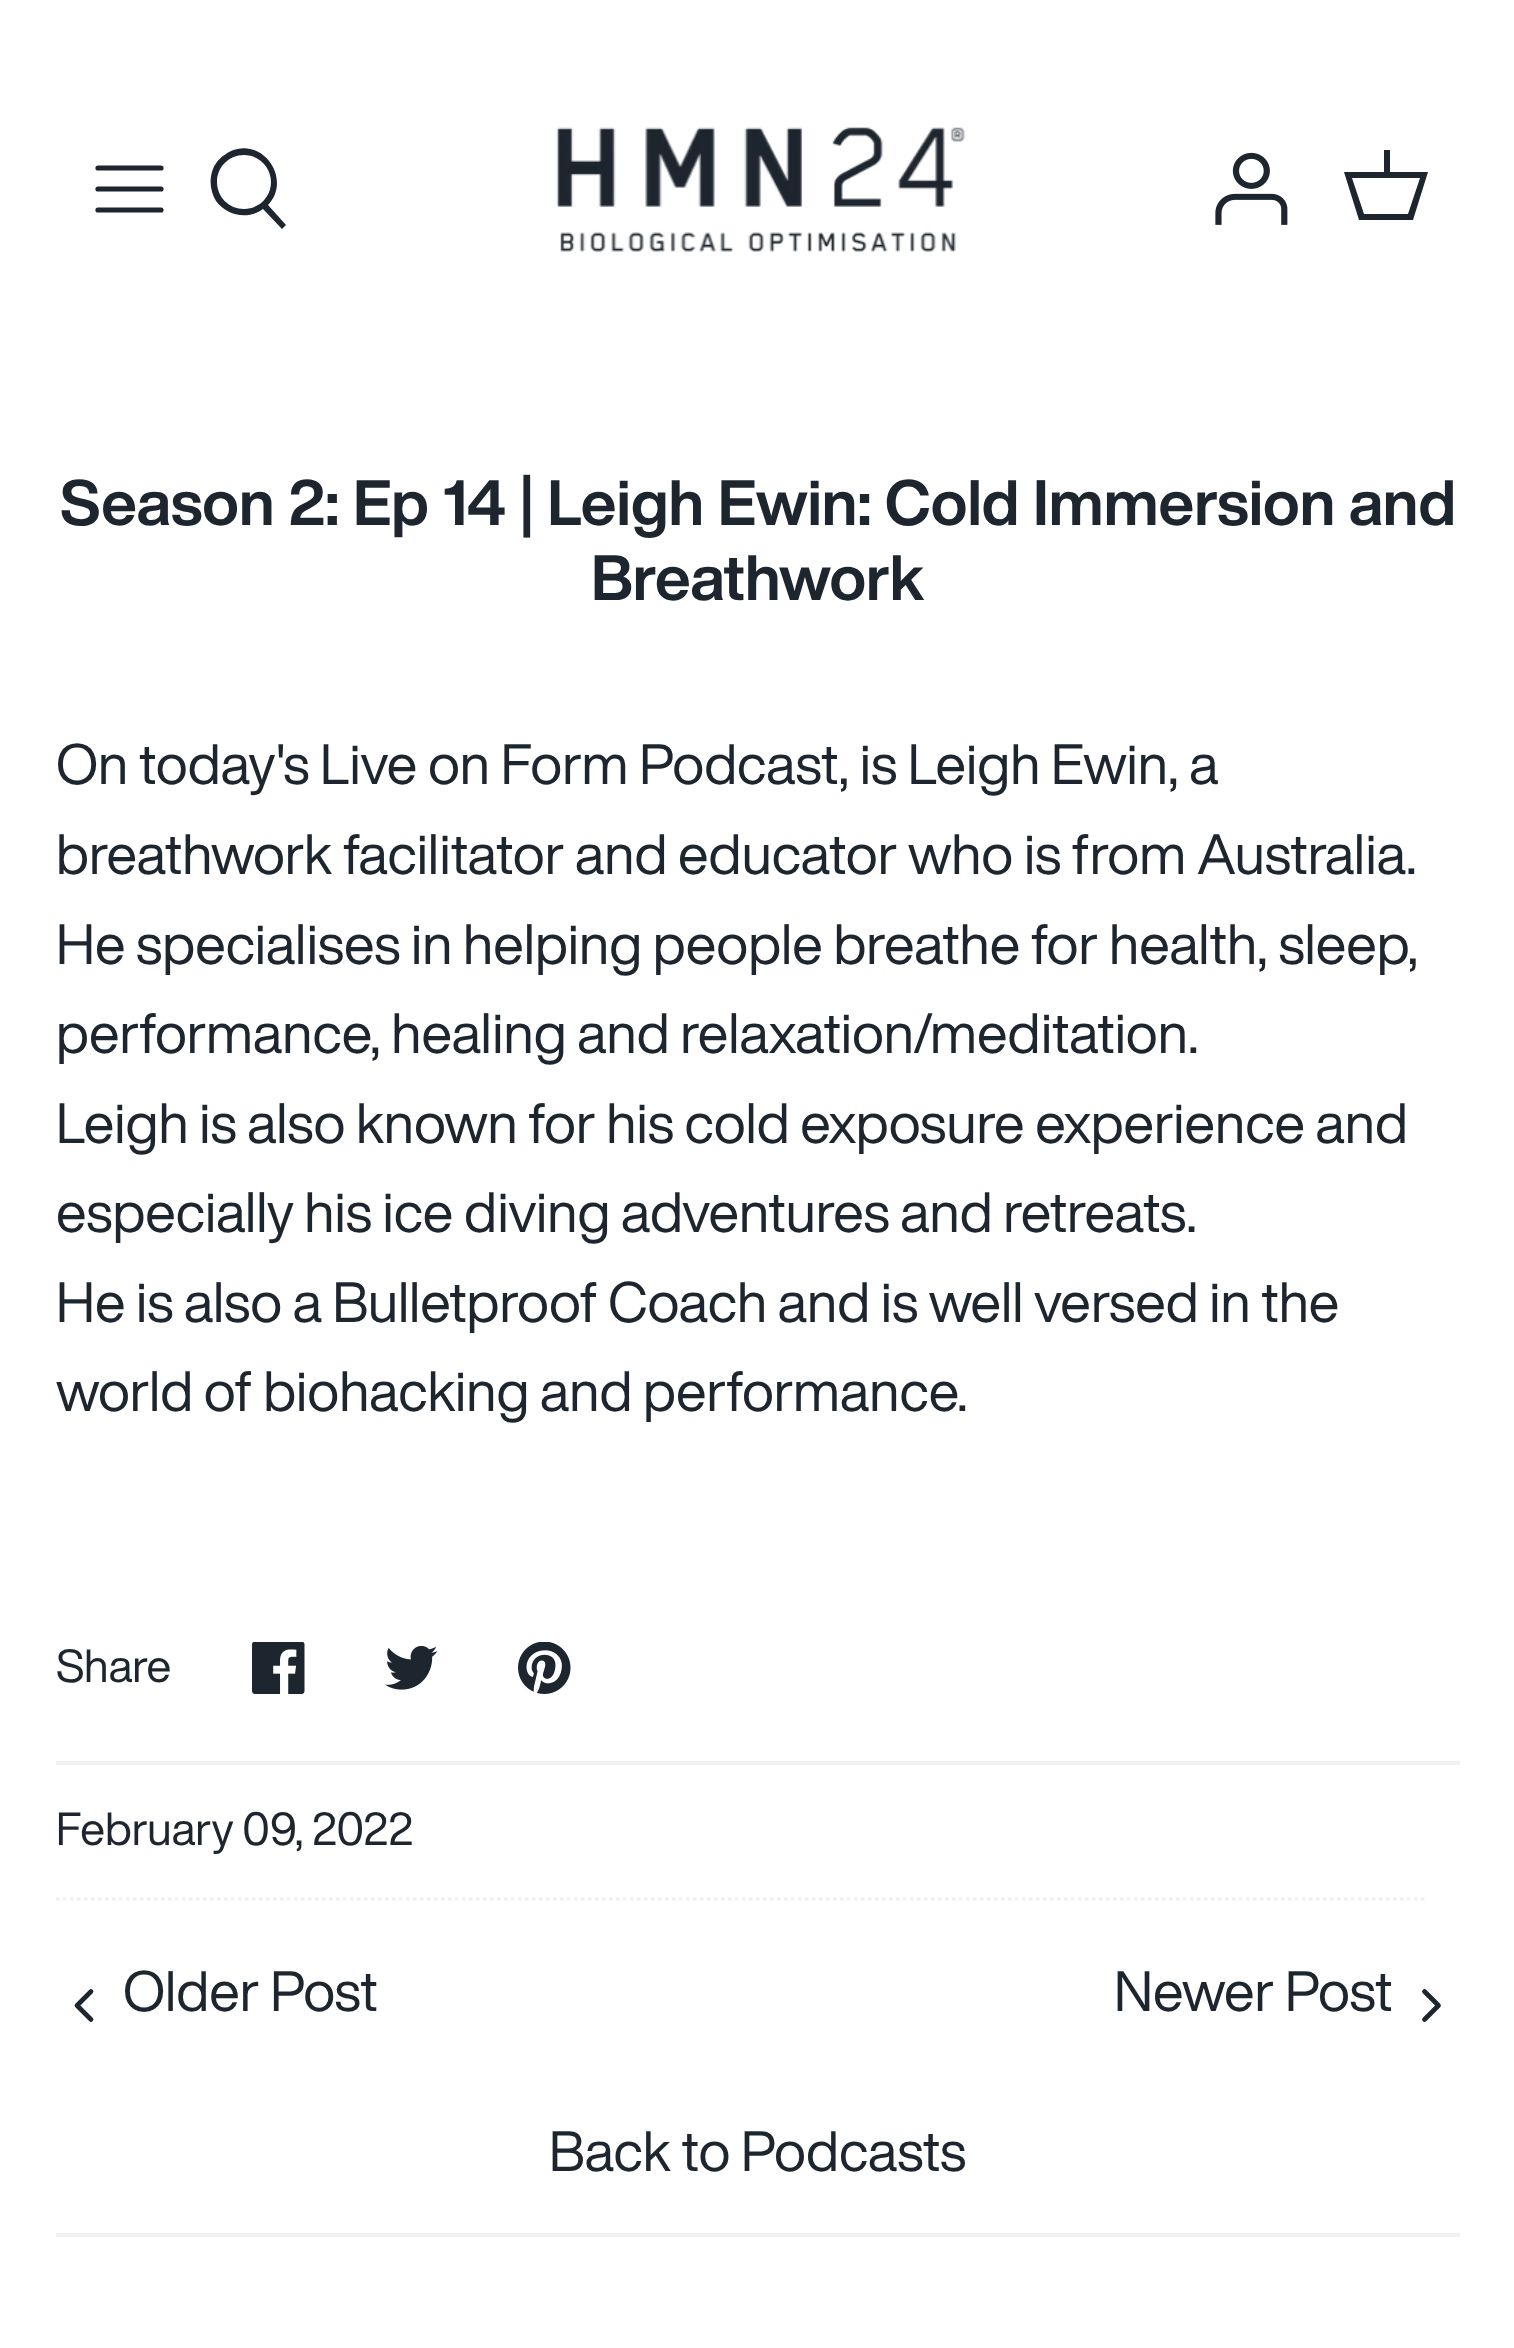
<?xml version="1.0" encoding="UTF-8"?>
<svg xmlns="http://www.w3.org/2000/svg" width="1514" height="2348">
    <rect width="100%" height="100%" fill="#FFFFFF"/>
    <path d="M 98 168 H 161" fill="none" stroke="#1D252E" stroke-width="5.2" stroke-linecap="round" stroke-linejoin="round"/>
    <path d="M 98 189 H 161" fill="none" stroke="#1D252E" stroke-width="5.2" stroke-linecap="round" stroke-linejoin="round"/>
    <path d="M 98 210 H 161" fill="none" stroke="#1D252E" stroke-width="5.2" stroke-linecap="round" stroke-linejoin="round"/>
    <path d="M 268 205 L 286 225 L 282 229 L 263 209 C 248 220 227 216 216 201 C 210 191 209 179 213 169 C 216 161 223 155 231 151 C 264 137 292 180 268 205 Z M 244 209 C 259 209 271 197 271 182 C 271 167 259 155 244 155 C 229 155 217 167 217 182 C 217 197 229 209 244 209 Z" fill="#1D252E"/>
    <image x="556" y="127" width="410" height="125" href="img_01.png"/>
    <image x="1215" y="152" width="73" height="73" href="img_02.png"/>
    <path d="M 1384 172 V 150 H 1390 V 172 H 1428 L 1413 220 H 1359 L 1344 172 Z M 1352 178 L 1364 214 H 1408 L 1420 178 Z" fill="#1D252E"/>
    <text x="60" y="525" font-family="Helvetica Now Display" font-size="63" font-weight="700" fill="#1D252E">Season 2: Ep 14 | Leigh Ewin: Cold Immersion and</text>
    <text x="591" y="600" font-family="Helvetica Now Display" font-size="63" font-weight="700" fill="#1D252E">Breathwork</text>
    <text font-family="Helvetica Now Display" font-size="56" fill="#1D252E">
        <tspan x="56" y="784">On today's Live on Form Podcast, is Leigh Ewin, a</tspan>
        <tspan x="56" y="874">breathwork facilitator and educator who is from Australia.</tspan>
        <tspan x="56" y="964">He specialises in helping people breathe for health, sleep,</tspan>
        <tspan x="56" y="1053">performance, healing and relaxation/meditation.</tspan>
        <tspan x="56" y="1143">Leigh is also known for his cold exposure experience and</tspan>
        <tspan x="56" y="1232">especially his ice diving adventures and retreats.</tspan>
        <tspan x="56" y="1322">He is also a Bulletproof Coach and is well versed in the</tspan>
        <tspan x="56" y="1411">world of biohacking and performance.</tspan>
    </text>
    <text x="56" y="1682" font-family="Helvetica Now Display" font-size="45.5" fill="#1D252E">Share</text>
    <image x="252" y="1642" width="53" height="52" href="img_03.png"/>
    <image x="385" y="1645" width="53" height="45" href="img_04.png"/>
    <image x="518" y="1642" width="53" height="52" href="img_05.png"/>
    <rect x="56" y="1761" width="1404" height="4" fill="#F1F1F1"/>
    <path d="M 56 1899 H 1424.5" fill="none" stroke="#F1F1F1" stroke-width="3.5" stroke-dasharray="3.5 3.5"/>
    <text x="56" y="1845" font-family="Helvetica Now Display" font-size="45.5" fill="#1D252E">February 09, 2022</text>
    <rect x="56" y="2233" width="1404" height="4" fill="#F1F1F1"/>
    <text x="123" y="2011" font-family="Helvetica Now Display" font-size="56" fill="#1D252E">Older Post</text>
    <path d="M 91 2019.5 L 77 2005.5 L 91 1991.5" fill="none" stroke="#1D252E" stroke-width="4.7" stroke-linecap="round" stroke-linejoin="round"/>
    <text x="1114" y="2011" font-family="Helvetica Now Display" font-size="56" fill="#1D252E">Newer Post</text>
    <path d="M 1424.5 2019.5 L 1438.5 2005.5 L 1424.5 1991.5" fill="none" stroke="#1D252E" stroke-width="4.7" stroke-linecap="round" stroke-linejoin="round"/>
    <text x="549" y="2171" font-family="Helvetica Now Display" font-size="56" fill="#1D252E">Back to Podcasts</text>
</svg>
